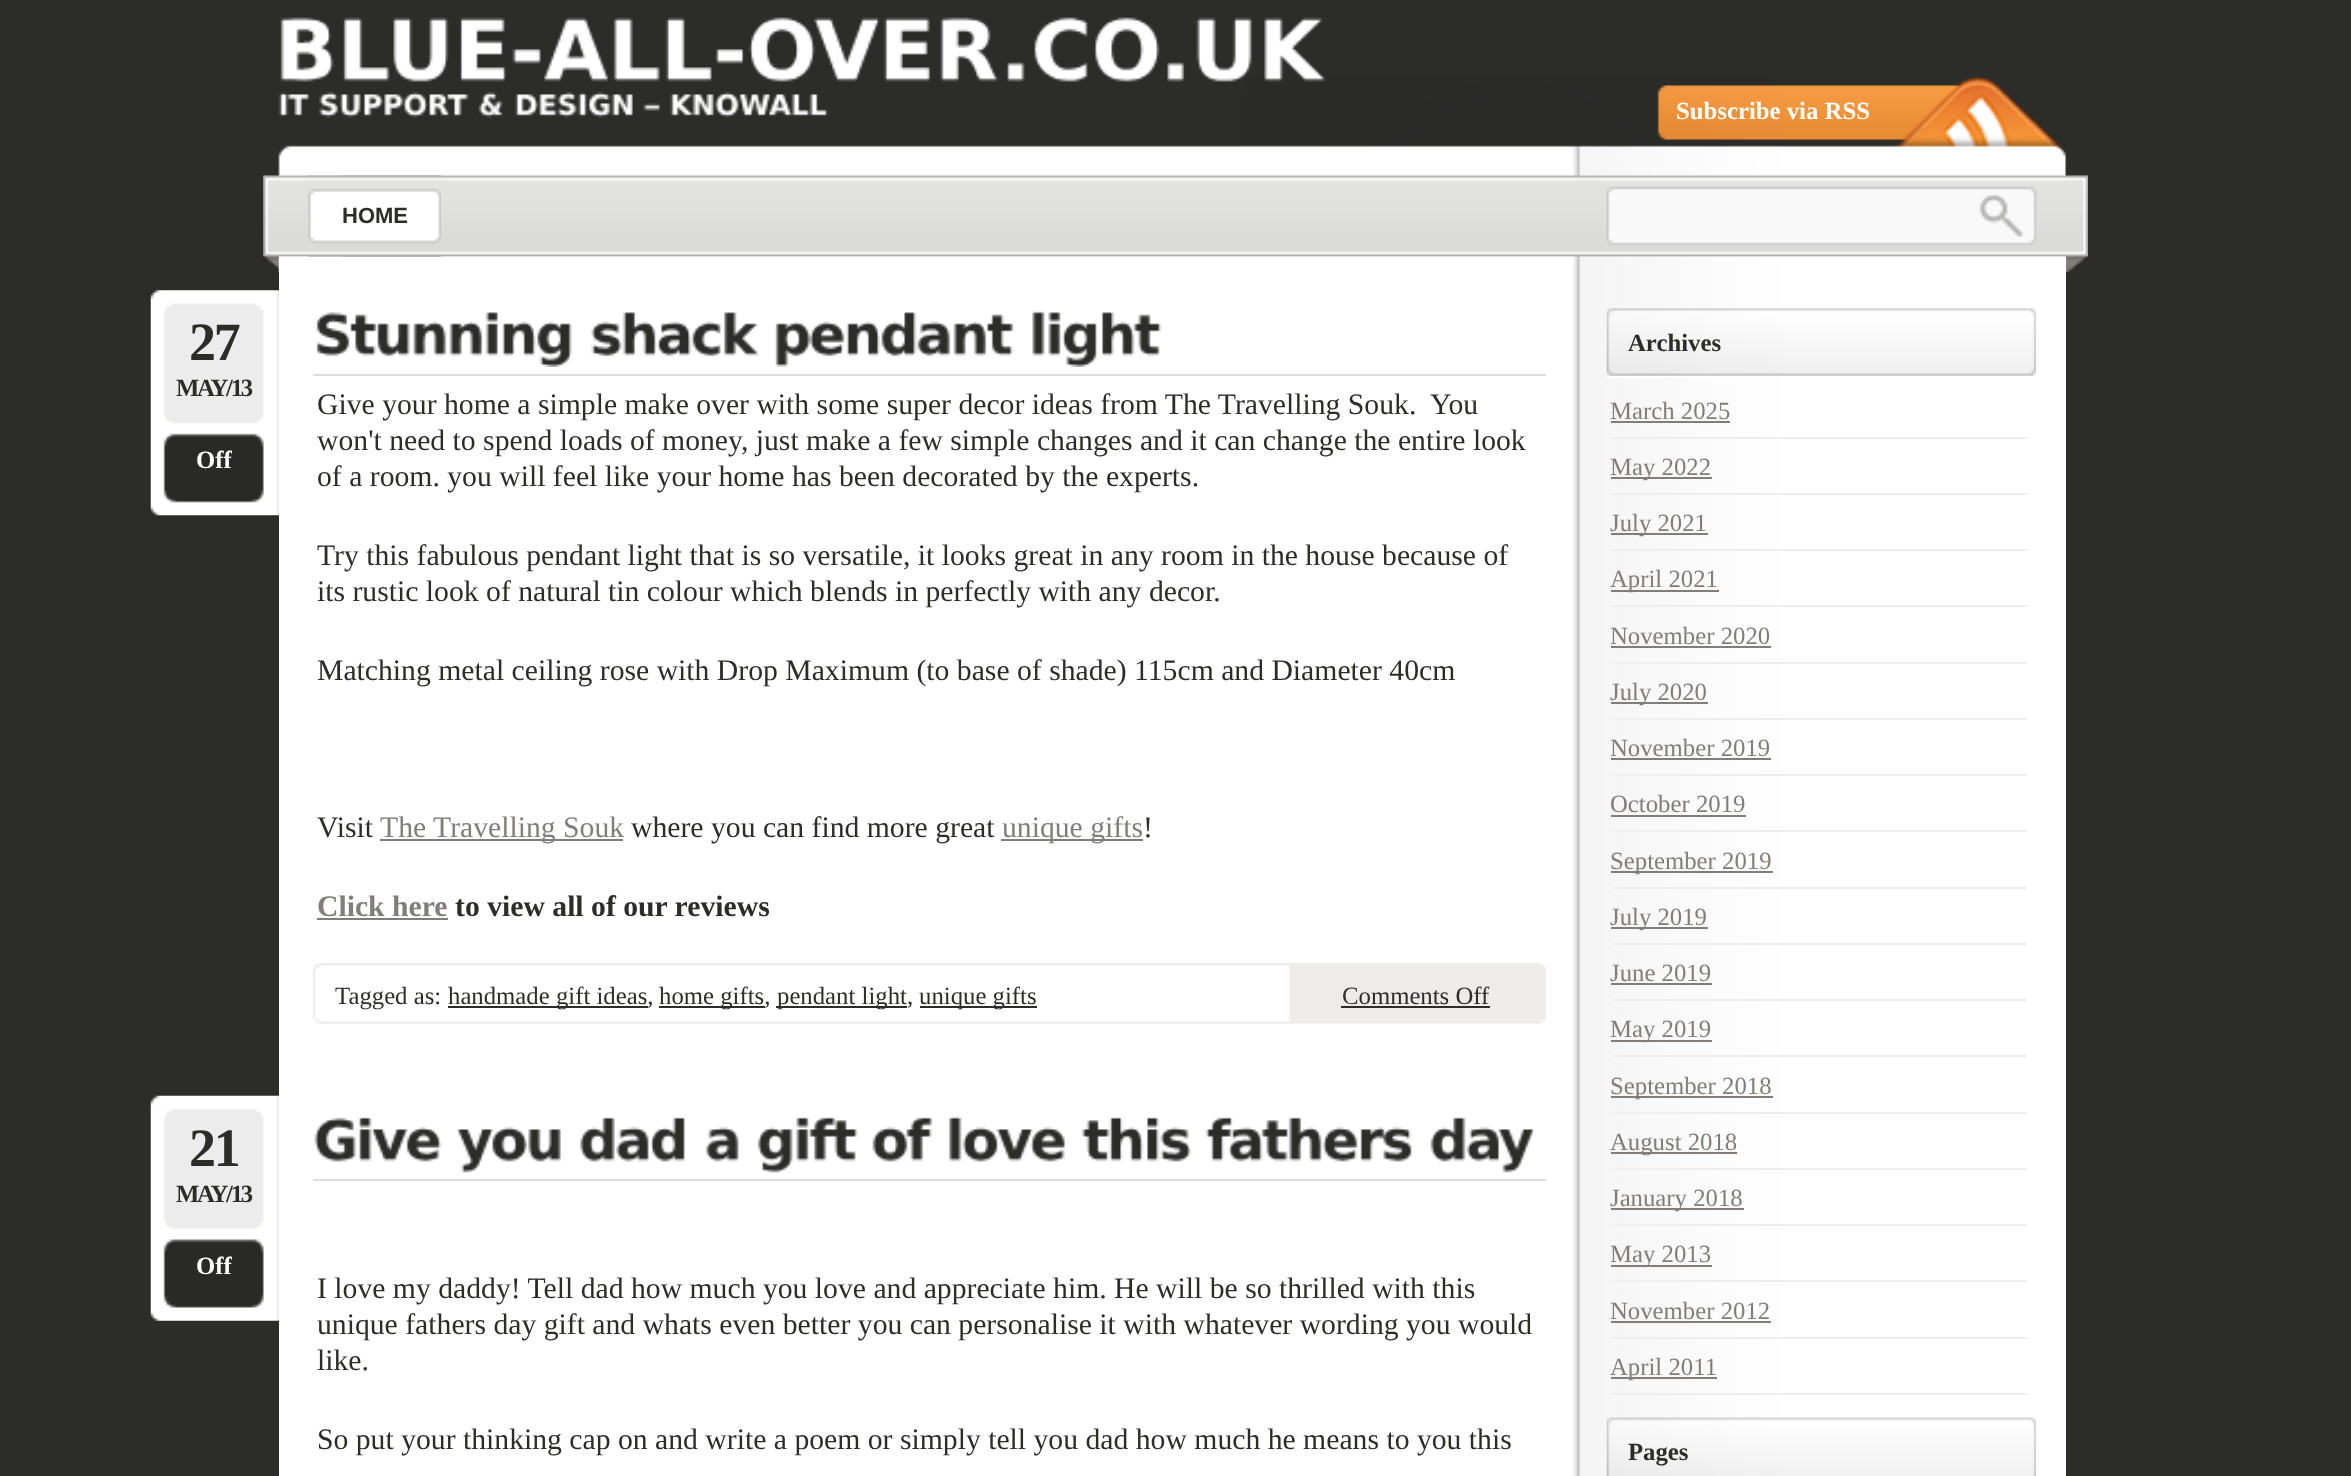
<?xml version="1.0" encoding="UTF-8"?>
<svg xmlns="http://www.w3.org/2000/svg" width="2351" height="1476">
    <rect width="100%" height="100%" fill="#2C2C29"/>
    <image x="263" y="76" width="1825" height="197" href="img_08.png"/>
    <image x="280" y="17" width="1046" height="65" href="img_01.png"/>
    <image x="278" y="92" width="31" height="25" href="img_02.png"/>
    <image x="319" y="92" width="150" height="26" href="img_03.png"/>
    <image x="478" y="92" width="25" height="26" href="img_04.png"/>
    <image x="515" y="92" width="118" height="26" href="img_05.png"/>
    <image x="643" y="103" width="17" height="8" href="img_06.png"/>
    <image x="670" y="92" width="159" height="26" href="img_07.png"/>
    <text x="1676" y="119" font-family="Liberation Serif" font-size="24.75" font-weight="700" fill="#FFFFFF">Subscribe via RSS</text>
    <rect x="2065" y="257" width="1" height="1219" fill="#FFFFFF"/>
    <image x="279" y="256" width="1787" height="1220" href="img_12.png"/>
    <image x="308" y="175" width="133" height="82" href="img_09.png"/>
    <image x="342" y="175" width="99" height="82" href="img_10.png"/>
    <text x="342" y="223" font-family="Liberation Sans" font-size="22" font-weight="700" fill="#2C2C29">HOME</text>
    <image x="1606" y="186" width="431" height="59" href="img_11.png"/>
    <image x="150" y="290" width="129" height="226" href="img_13.png"/>
    <text x="189" y="360" font-family="Liberation Serif" font-size="54" font-weight="700" letter-spacing="-2.25" fill="#2C2C29">27</text>
    <text x="176" y="396" font-family="Liberation Serif" font-size="24.75" font-weight="700" letter-spacing="-2.25" fill="#2C2C29">MAY/13</text>
    <text x="196" y="468" font-family="Liberation Serif" font-size="24.75" font-weight="700" fill="#FFFFFF">Off</text>
    <rect x="313" y="374" width="1233" height="2" fill="#DCDCDB"/>
    <image x="316" y="312" width="256" height="55" href="img_14.png"/>
    <image x="591" y="312" width="168" height="45" href="img_15.png"/>
    <image x="775" y="312" width="239" height="55" href="img_16.png"/>
    <image x="1032" y="310" width="130" height="57" href="img_17.png"/>
    <text font-family="Liberation Serif" font-size="29.7" fill="#2C2C29" xml:space="preserve"><tspan x="317" y="414">Give your home a simple make over with some super decor ideas from The Travelling Souk.  You</tspan><tspan x="317" y="450">won't need to spend loads of money, just make a few simple changes and it can change the entire look</tspan><tspan x="317" y="486">of a room. you will feel like your home has been decorated by the experts.</tspan></text>
    <text font-family="Liberation Serif" font-size="29.7" fill="#2C2C29">
        <tspan x="317" y="565">Try this fabulous pendant light that is so versatile, it looks great in any room in the house because of</tspan>
        <tspan x="317" y="601">its rustic look of natural tin colour which blends in perfectly with any decor.</tspan>
    </text>
    <text x="317" y="680" font-family="Liberation Serif" font-size="29.7" fill="#2C2C29">Matching metal ceiling rose with Drop Maximum (to base of shade) 115cm and Diameter 40cm</text>
    <text x="317" y="837" font-family="Liberation Serif" font-size="29.7" fill="#2C2C29">Visit</text>
    <rect x="380" y="839" width="243" height="2" fill="#807D7A"/>
    <text x="380" y="837" font-family="Liberation Serif" font-size="29.7" fill="#807D7A">The Travelling Souk</text>
    <text x="631" y="837" font-family="Liberation Serif" font-size="29.7" fill="#2C2C29">where you can find more great</text>
    <rect x="1001" y="839" width="142" height="2" fill="#807D7A"/>
    <text x="1002" y="837" font-family="Liberation Serif" font-size="29.7" fill="#807D7A">unique gifts</text>
    <text x="1143" y="837" font-family="Liberation Serif" font-size="29.7" fill="#2C2C29">!</text>
    <text x="317" y="916" font-family="Liberation Serif" font-size="29.7" font-weight="700" fill="#807D7A">Click here</text>
    <rect x="317" y="918" width="131" height="2" fill="#807D7A"/>
    <text x="455" y="916" font-family="Liberation Serif" font-size="29.7" font-weight="700" fill="#2C2C29">to view all of our reviews</text>
    <image x="313" y="963" width="1233" height="56" href="img_18.png"/>
    <text x="335" y="1004" font-family="Liberation Serif" font-size="24.75" fill="#2C2C29">Tagged as:</text>
    <rect x="448" y="1006" width="200" height="2" fill="#2C2C29"/>
    <text x="448" y="1004" font-family="Liberation Serif" font-size="24.75" fill="#2C2C29">handmade gift ideas,</text>
    <rect x="659" y="1006" width="106" height="2" fill="#2C2C29"/>
    <text x="659" y="1004" font-family="Liberation Serif" font-size="24.75" fill="#2C2C29">home gifts,</text>
    <rect x="776" y="1006" width="131" height="2" fill="#2C2C29"/>
    <text x="777" y="1004" font-family="Liberation Serif" font-size="24.75" fill="#2C2C29">pendant light,</text>
    <rect x="920" y="1006" width="117" height="2" fill="#2C2C29"/>
    <text x="919" y="1004" font-family="Liberation Serif" font-size="24.75" fill="#2C2C29">unique gifts</text>
    <text x="1342" y="1004" font-family="Liberation Serif" font-size="24.75" fill="#2C2C29">Comments Off</text>
    <rect x="1341" y="1006" width="149" height="2" fill="#2C2C29"/>
    <image x="313" y="1019" width="1232" height="5" href="img_19.png"/>
    <image x="150" y="1095" width="129" height="226" href="img_20.png"/>
    <text x="189" y="1166" font-family="Liberation Serif" font-size="54" font-weight="700" letter-spacing="-2.25" fill="#2C2C29">21</text>
    <text x="176" y="1202" font-family="Liberation Serif" font-size="24.75" font-weight="700" letter-spacing="-2.25" fill="#2C2C29">MAY/13</text>
    <text x="196" y="1274" font-family="Liberation Serif" font-size="24.75" font-weight="700" fill="#FFFFFF">Off</text>
    <rect x="313" y="1179" width="1233" height="2" fill="#DCDCDB"/>
    <image x="314" y="1117" width="128" height="45" href="img_21.png"/>
    <image x="456" y="1126" width="105" height="47" href="img_22.png"/>
    <image x="580" y="1117" width="105" height="45" href="img_23.png"/>
    <image x="706" y="1126" width="33" height="36" href="img_24.png"/>
    <image x="757" y="1117" width="101" height="56" href="img_25.png"/>
    <image x="872" y="1117" width="61" height="45" href="img_26.png"/>
    <image x="949" y="1116" width="116" height="46" href="img_27.png"/>
    <image x="1081" y="1117" width="110" height="45" href="img_28.png"/>
    <image x="1205" y="1117" width="207" height="45" href="img_29.png"/>
    <image x="1430" y="1117" width="105" height="56" href="img_30.png"/>
    <text font-family="Liberation Serif" font-size="29.7" fill="#2C2C29">
        <tspan x="317" y="1298">I love my daddy! Tell dad how much you love and appreciate him. He will be so thrilled with this</tspan>
        <tspan x="317" y="1334">unique fathers day gift and whats even better you can personalise it with whatever wording you would</tspan>
        <tspan x="317" y="1370">like.</tspan>
    </text>
    <text x="317" y="1449" font-family="Liberation Serif" font-size="29.7" fill="#2C2C29">So put your thinking cap on and write a poem or simply tell you dad how much he means to you this</text>
    <rect x="1607" y="308" width="131" height="70" fill="#FFFFFF"/>
    <image x="1606" y="308" width="430" height="68" href="img_31.png"/>
    <text x="1628" y="351" font-family="Liberation Serif" font-size="24.75" font-weight="700" fill="#2C2C29">Archives</text>
    <rect x="1611" y="437" width="416" height="2" fill="#EEEEEE"/>
    <text x="1610" y="419" font-family="Liberation Serif" font-size="24.75" fill="#807D7A">March 2025</text>
    <rect x="1611" y="421" width="119" height="2" fill="#807D7A"/>
    <rect x="1611" y="493" width="416" height="2" fill="#EEEEEE"/>
    <rect x="1611" y="477" width="101" height="2" fill="#807D7A"/>
    <text x="1610" y="475" font-family="Liberation Serif" font-size="24.75" fill="#807D7A">May 2022</text>
    <rect x="1611" y="549" width="416" height="2" fill="#EEEEEE"/>
    <rect x="1611" y="533" width="97" height="2" fill="#807D7A"/>
    <text x="1610" y="531" font-family="Liberation Serif" font-size="24.75" fill="#807D7A">July 2021</text>
    <rect x="1611" y="605" width="416" height="2" fill="#EEEEEE"/>
    <rect x="1611" y="590" width="108" height="2" fill="#807D7A"/>
    <text x="1610" y="587" font-family="Liberation Serif" font-size="24.75" fill="#807D7A">April 2021</text>
    <rect x="1611" y="662" width="416" height="2" fill="#EEEEEE"/>
    <text x="1610" y="644" font-family="Liberation Serif" font-size="24.75" fill="#807D7A">November 2020</text>
    <rect x="1611" y="646" width="160" height="2" fill="#807D7A"/>
    <rect x="1611" y="718" width="416" height="2" fill="#EEEEEE"/>
    <rect x="1611" y="702" width="97" height="2" fill="#807D7A"/>
    <text x="1610" y="700" font-family="Liberation Serif" font-size="24.75" fill="#807D7A">July 2020</text>
    <rect x="1611" y="774" width="416" height="2" fill="#EEEEEE"/>
    <text x="1610" y="756" font-family="Liberation Serif" font-size="24.75" fill="#807D7A">November 2019</text>
    <rect x="1611" y="758" width="160" height="2" fill="#807D7A"/>
    <rect x="1611" y="830" width="416" height="2" fill="#EEEEEE"/>
    <text x="1610" y="812" font-family="Liberation Serif" font-size="24.75" fill="#807D7A">October 2019</text>
    <rect x="1611" y="815" width="135" height="2" fill="#807D7A"/>
    <rect x="1611" y="887" width="416" height="2" fill="#EEEEEE"/>
    <rect x="1611" y="871" width="162" height="2" fill="#807D7A"/>
    <text x="1610" y="869" font-family="Liberation Serif" font-size="24.75" fill="#807D7A">September 2019</text>
    <rect x="1611" y="943" width="416" height="2" fill="#EEEEEE"/>
    <rect x="1611" y="927" width="97" height="2" fill="#807D7A"/>
    <text x="1610" y="925" font-family="Liberation Serif" font-size="24.75" fill="#807D7A">July 2019</text>
    <rect x="1611" y="999" width="416" height="2" fill="#EEEEEE"/>
    <text x="1610" y="981" font-family="Liberation Serif" font-size="24.75" fill="#807D7A">June 2019</text>
    <rect x="1611" y="983" width="101" height="2" fill="#807D7A"/>
    <rect x="1611" y="1055" width="416" height="2" fill="#EEEEEE"/>
    <rect x="1611" y="1040" width="101" height="2" fill="#807D7A"/>
    <text x="1610" y="1037" font-family="Liberation Serif" font-size="24.75" fill="#807D7A">May 2019</text>
    <rect x="1611" y="1112" width="416" height="2" fill="#EEEEEE"/>
    <rect x="1611" y="1096" width="162" height="2" fill="#807D7A"/>
    <text x="1610" y="1094" font-family="Liberation Serif" font-size="24.75" fill="#807D7A">September 2018</text>
    <rect x="1611" y="1168" width="416" height="2" fill="#EEEEEE"/>
    <rect x="1611" y="1152" width="126" height="2" fill="#807D7A"/>
    <text x="1610" y="1150" font-family="Liberation Serif" font-size="24.75" fill="#807D7A">August 2018</text>
    <rect x="1611" y="1224" width="416" height="2" fill="#EEEEEE"/>
    <rect x="1611" y="1208" width="133" height="2" fill="#807D7A"/>
    <text x="1610" y="1206" font-family="Liberation Serif" font-size="24.75" fill="#807D7A">January 2018</text>
    <rect x="1611" y="1280" width="416" height="2" fill="#EEEEEE"/>
    <rect x="1611" y="1265" width="101" height="2" fill="#807D7A"/>
    <text x="1610" y="1262" font-family="Liberation Serif" font-size="24.75" fill="#807D7A">May 2013</text>
    <rect x="1611" y="1337" width="416" height="2" fill="#EEEEEE"/>
    <text x="1610" y="1319" font-family="Liberation Serif" font-size="24.75" fill="#807D7A">November 2012</text>
    <rect x="1611" y="1321" width="160" height="2" fill="#807D7A"/>
    <rect x="1611" y="1393" width="416" height="2" fill="#EEEEEE"/>
    <rect x="1611" y="1377" width="106" height="2" fill="#807D7A"/>
    <text x="1610" y="1375" font-family="Liberation Serif" font-size="24.75" fill="#807D7A">April 2011</text>
    <image x="1606" y="1417" width="430" height="59" href="img_32.png"/>
    <text x="1628" y="1460" font-family="Liberation Serif" font-size="24.75" font-weight="700" fill="#2C2C29">Pages</text>
</svg>
